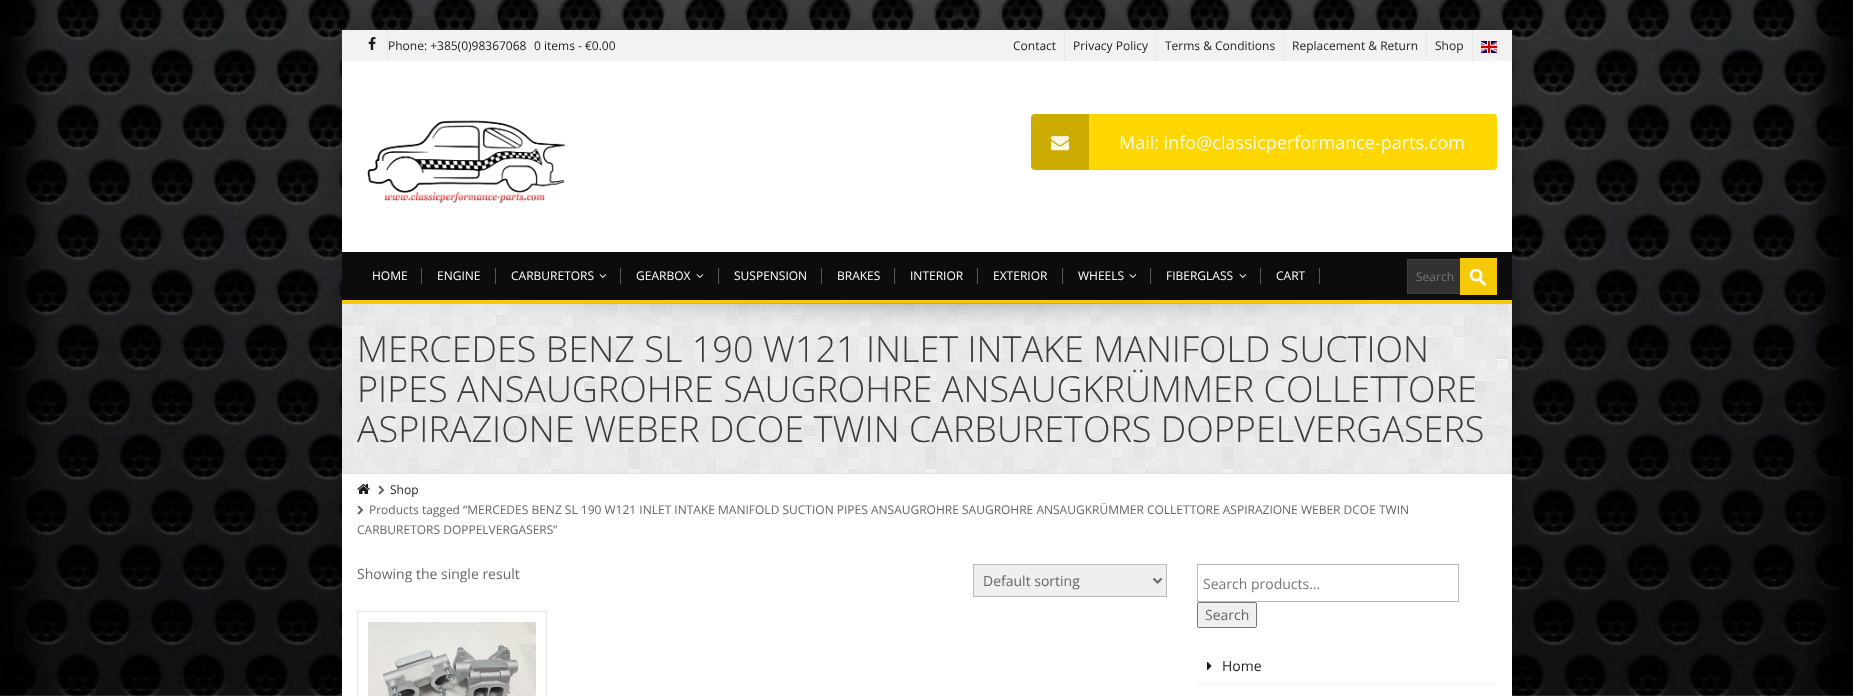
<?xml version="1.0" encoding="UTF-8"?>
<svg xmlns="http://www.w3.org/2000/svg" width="1853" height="696">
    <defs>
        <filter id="blur1" x="-50%" y="-200%" width="200%" height="500%"><feGaussianBlur stdDeviation="15"/></filter>
    </defs>
    <rect width="100%" height="100%" fill="#FFFFFF"/>
    <image x="0" y="0" width="1853" height="696" href="img_01.png"/>
    <rect x="342" y="30" width="1170" height="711" fill="#000000" fill-opacity="0.3" filter="url(#blur1)"/>
    <rect x="342" y="61" width="1170" height="635" fill="#FFFFFF"/>
    <rect x="342" y="30" width="1170" height="31" fill="#F2F2F2"/>
    <rect x="387" y="30" width="1" height="30" fill="#E6E6E6"/>
    <image x="368" y="37" width="8" height="13" href="img_02.png"/>
    <text x="388" y="50" font-family="Open Sans" font-size="12" fill="#1C1C1C">Phone: +385(0)98367068</text>
    <text x="534" y="50" font-family="Open Sans" font-size="12" fill="#1C1C1C">0 items - €0.00</text>
    <rect x="1064" y="30" width="1" height="31" fill="#E6E6E6"/>
    <text x="1013" y="50" font-family="Open Sans" font-size="12" fill="#1C1C1C">Contact</text>
    <rect x="1156" y="30" width="1" height="31" fill="#E6E6E6"/>
    <text x="1073" y="50" font-family="Open Sans" font-size="12" fill="#1C1C1C">Privacy Policy</text>
    <rect x="1283" y="30" width="1" height="31" fill="#E6E6E6"/>
    <text x="1165" y="50" font-family="Open Sans" font-size="12" fill="#1C1C1C">Terms &amp; Conditions</text>
    <rect x="1426" y="30" width="1" height="31" fill="#E6E6E6"/>
    <text x="1292" y="50" font-family="Open Sans" font-size="12" fill="#1C1C1C">Replacement &amp; Return</text>
    <rect x="1472" y="30" width="1" height="31" fill="#E6E6E6"/>
    <text x="1435" y="50" font-family="Open Sans" font-size="12" fill="#1C1C1C">Shop</text>
    <image x="1481" y="41" width="16" height="12" href="img_03.png"/>
    <image x="367" y="120" width="198" height="83" href="img_04.png"/>
    <rect x="1031" y="114" width="466" height="56" rx="4" fill="#FFD700"/>
    <path d="M 1035 114 H 1089 V 170 H 1035 C 1033 170 1031 168 1031 166 V 118 C 1031 116 1033 114 1035 114 Z" fill="#000000" fill-opacity="0.2"/>
    <image x="1051" y="136" width="18" height="15" href="img_05.png"/>
    <text x="1119" y="149" font-family="Open Sans" font-size="18" fill="#FFFBE6">Mail: info@classicperformance-parts.com</text>
    <rect x="342" y="252" width="1170" height="48" fill="#0C0C0C"/>
    <rect x="342" y="300" width="1170" height="4" fill="#F5C906"/>
    <rect x="421" y="268" width="1" height="16" fill="#555555"/>
    <text x="372" y="280" font-family="Open Sans" font-size="12" fill="#FFFFFF">HOME</text>
    <rect x="495" y="268" width="1" height="16" fill="#555555"/>
    <text x="437" y="280" font-family="Open Sans" font-size="12" fill="#FFFFFF">ENGINE</text>
    <rect x="620" y="268" width="1" height="16" fill="#555555"/>
    <text x="511" y="280" font-family="Open Sans" font-size="12" fill="#FFFFFF">CARBURETORS</text>
    <image x="599" y="274" width="8" height="4" href="img_06.png"/>
    <rect x="718" y="268" width="1" height="16" fill="#555555"/>
    <text x="636" y="280" font-family="Open Sans" font-size="12" fill="#FFFFFF">GEARBOX</text>
    <image x="696" y="274" width="8" height="4" href="img_06.png"/>
    <rect x="821" y="268" width="1" height="16" fill="#555555"/>
    <text x="734" y="280" font-family="Open Sans" font-size="12" fill="#FFFFFF">SUSPENSION</text>
    <rect x="894" y="268" width="1" height="16" fill="#555555"/>
    <text x="837" y="280" font-family="Open Sans" font-size="12" fill="#FFFFFF">BRAKES</text>
    <rect x="977" y="268" width="1" height="16" fill="#555555"/>
    <text x="910" y="280" font-family="Open Sans" font-size="12" fill="#FFFFFF">INTERIOR</text>
    <rect x="1062" y="268" width="1" height="16" fill="#555555"/>
    <text x="993" y="280" font-family="Open Sans" font-size="12" fill="#FFFFFF">EXTERIOR</text>
    <rect x="1150" y="268" width="1" height="16" fill="#555555"/>
    <text x="1078" y="280" font-family="Open Sans" font-size="12" fill="#FFFFFF">WHEELS</text>
    <image x="1129" y="274" width="8" height="4" href="img_06.png"/>
    <rect x="1260" y="268" width="1" height="16" fill="#555555"/>
    <text x="1166" y="280" font-family="Open Sans" font-size="12" fill="#FFFFFF">FIBERGLASS</text>
    <image x="1239" y="274" width="8" height="4" href="img_06.png"/>
    <rect x="1319" y="268" width="1" height="16" fill="#555555"/>
    <text x="1276" y="280" font-family="Open Sans" font-size="12" fill="#FFFFFF">CART</text>
    <rect x="1408" y="260" width="52" height="33" fill="#323232"/>
    <rect x="1407.5" y="259.5" width="89" height="34" fill="none" stroke="#334444"/>
    <text x="1416" y="281" font-family="Open Sans" font-size="12" fill="#757575">Search</text>
    <rect x="1460" y="258" width="37" height="37" fill="#F5C906"/>
    <image x="1469" y="268" width="18" height="18" href="img_07.png"/>
    <image x="342" y="304" width="1170" height="169" href="img_08.png"/>
    <image x="342" y="303" width="1170" height="20" href="img_09.png"/>
    <text font-family="Open Sans" font-size="36" font-weight="300" fill="#3A3A3A">
        <tspan x="357" y="362">MERCEDES BENZ SL 190 W121 INLET INTAKE MANIFOLD SUCTION</tspan>
        <tspan x="357" y="402">PIPES ANSAUGROHRE SAUGROHRE ANSAUGKRÜMMER COLLETTORE</tspan>
        <tspan x="357" y="442">ASPIRAZIONE WEBER DCOE TWIN CARBURETORS DOPPELVERGASERS</tspan>
    </text>
    <rect x="342" y="473" width="1170" height="1" fill="#E0E0E0"/>
    <image x="357" y="484" width="13" height="10" href="img_10.png"/>
    <image x="378" y="485" width="7" height="10" href="img_11.png"/>
    <text x="390" y="494" font-family="Open Sans" font-size="12" fill="#1C1C1C">Shop</text>
    <image x="357" y="505" width="7" height="10" href="img_11.png"/>
    <text x="369" y="514" font-family="Open Sans" font-size="12" fill="#666666">Products tagged “MERCEDES BENZ SL 190 W121 INLET INTAKE MANIFOLD SUCTION PIPES ANSAUGROHRE SAUGROHRE ANSAUGKRÜMMER COLLETTORE ASPIRAZIONE WEBER DCOE TWIN</text>
    <text x="357" y="534" font-family="Open Sans" font-size="12" fill="#666666">CARBURETORS DOPPELVERGASERS”</text>
    <text x="357" y="579" font-family="Open Sans" font-size="14" fill="#666666">Showing the single result</text>
    <rect x="973.5" y="564.5" width="193" height="32" fill="#EFEFEF" stroke="#BBBBBB"/>
    <path d="M 1153.5 578.5 L 1157.5 582.5 L 1161.5 578.5" fill="none" stroke="#666666" stroke-width="2"/>
    <text x="983" y="586" font-family="Open Sans" font-size="14" fill="#666666">Default sorting</text>
    <rect x="357.5" y="611.5" width="189" height="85" fill="none" stroke="#E8E8E8"/>
    <image x="368" y="622" width="168" height="74" href="img_12.png"/>
    <rect x="1197.5" y="564.5" width="261" height="37" fill="none" stroke="#BBBBBB"/>
    <text x="1203" y="589" font-family="Open Sans" font-size="14" fill="#757575">Search products…</text>
    <rect x="1197.5" y="602.5" width="59" height="25" rx="1.5" fill="#EFEFEF" stroke="#767676"/>
    <text x="1205" y="620" font-family="Open Sans" font-size="14" fill="#666666">Search</text>
    <rect x="1197" y="684" width="299" height="1" fill="#F2F2F2"/>
    <image x="1207" y="662" width="5" height="8" href="img_13.png"/>
    <text x="1222" y="671" font-family="Open Sans" font-size="14" fill="#1C1C1C">Home</text>
</svg>
